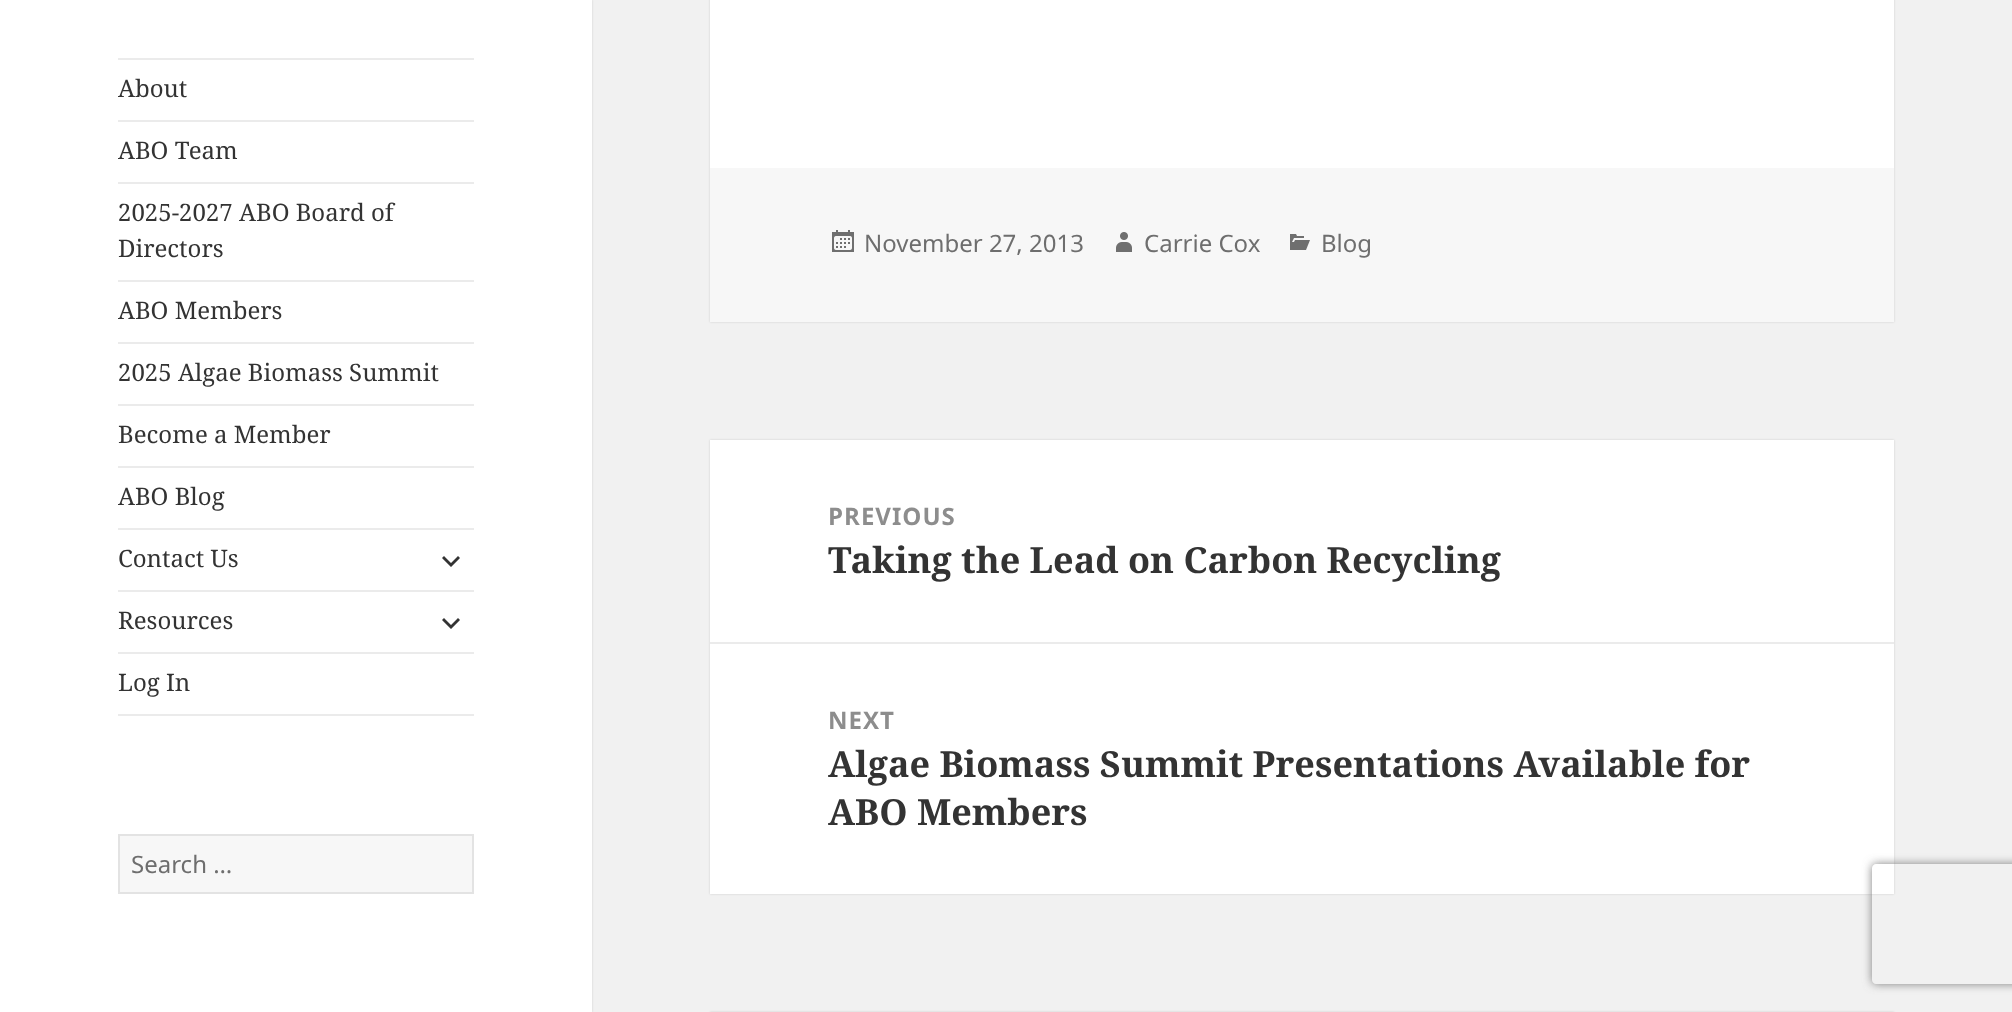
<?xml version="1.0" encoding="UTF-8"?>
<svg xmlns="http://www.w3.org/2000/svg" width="2012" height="1012">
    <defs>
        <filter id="blur1" x="-50%" y="-200%" width="200%" height="500%"><feGaussianBlur stdDeviation="1"/></filter>
        <clipPath id="clip1"><path d="M 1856 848 H 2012 V 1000 H 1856 Z M 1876 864 H 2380 C 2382 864 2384 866 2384 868 V 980 C 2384 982 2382 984 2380 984 H 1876 C 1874 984 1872 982 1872 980 V 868 C 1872 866 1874 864 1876 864 Z" clip-rule="evenodd"/></clipPath>
        <filter id="blur2" x="-50%" y="-200%" width="200%" height="500%"><feGaussianBlur stdDeviation="5"/></filter>
    </defs>
    <rect width="100%" height="100%" fill="#F1F1F1"/>
    <rect x="0" y="0" width="592" height="1012" fill="#000000" fill-opacity="0.15" filter="url(#blur1)"/>
    <rect x="0" y="0" width="592" height="1012" fill="#FFFFFF"/>
    <rect x="118" y="58" width="356" height="2" fill="#EBEBEB"/>
    <rect x="118" y="714" width="356" height="2" fill="#EBEBEB"/>
    <text x="118" y="97" font-family="Noto Serif" font-size="24" fill="#333333">About</text>
    <rect x="118" y="120" width="356" height="2" fill="#EBEBEB"/>
    <text x="118" y="159" font-family="Noto Serif" font-size="24" fill="#333333">ABO Team</text>
    <rect x="118" y="182" width="356" height="2" fill="#EBEBEB"/>
    <text font-family="Noto Serif" font-size="24" fill="#333333">
        <tspan x="118" y="221">2025-2027 ABO Board of</tspan>
        <tspan x="118" y="257">Directors</tspan>
    </text>
    <rect x="118" y="280" width="356" height="2" fill="#EBEBEB"/>
    <text x="118" y="319" font-family="Noto Serif" font-size="24" fill="#333333">ABO Members</text>
    <rect x="118" y="342" width="356" height="2" fill="#EBEBEB"/>
    <text x="118" y="381" font-family="Noto Serif" font-size="24" fill="#333333">2025 Algae Biomass Summit</text>
    <rect x="118" y="404" width="356" height="2" fill="#EBEBEB"/>
    <text x="118" y="443" font-family="Noto Serif" font-size="24" fill="#333333">Become a Member</text>
    <rect x="118" y="466" width="356" height="2" fill="#EBEBEB"/>
    <text x="118" y="505" font-family="Noto Serif" font-size="24" fill="#333333">ABO Blog</text>
    <rect x="118" y="528" width="356" height="2" fill="#EBEBEB"/>
    <text x="118" y="567" font-family="Noto Serif" font-size="24" fill="#333333">Contact Us</text>
    <path d="M 458 556 L 460 558 L 451 567 L 442 558 L 444 556 L 451 563 Z" fill="#333333"/>
    <rect x="118" y="590" width="356" height="2" fill="#EBEBEB"/>
    <text x="118" y="629" font-family="Noto Serif" font-size="24" fill="#333333">Resources</text>
    <path d="M 458 618 L 460 620 L 451 629 L 442 620 L 444 618 L 451 625 Z" fill="#333333"/>
    <rect x="118" y="652" width="356" height="2" fill="#EBEBEB"/>
    <text x="118" y="691" font-family="Noto Serif" font-size="24" fill="#333333">Log In</text>
    <rect x="119" y="835" width="354" height="58" fill="#F7F7F7" stroke="#E3E3E3" stroke-width="2"/>
    <text x="131" y="873" font-family="Noto Sans" font-size="24" fill="#6E6E6E">Search …</text>
    <rect x="710" y="-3" width="1184" height="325" fill="#000000" fill-opacity="0.15" filter="url(#blur1)"/>
    <rect x="710" y="0" width="1184" height="168" fill="#FFFFFF"/>
    <rect x="710" y="168" width="1184" height="154" fill="#F7F7F7"/>
    <image x="832" y="230" width="22" height="22" href="img_01.png"/>
    <text x="864" y="252" font-family="Noto Sans" font-size="24" fill="#6E6E6E">November 27, 2013</text>
    <image x="1116" y="232" width="16" height="20" href="img_02.png"/>
    <text x="1144" y="252" font-family="Noto Sans" font-size="24" fill="#6E6E6E">Carrie Cox</text>
    <image x="1290" y="234" width="20" height="16" href="img_03.png"/>
    <text x="1321" y="252" font-family="Noto Sans" font-size="24" fill="#6E6E6E">Blog</text>
    <rect x="710" y="440" width="1184" height="454" fill="#000000" fill-opacity="0.15" filter="url(#blur1)"/>
    <rect x="710" y="440" width="1184" height="454" fill="#FFFFFF"/>
    <text x="828" y="525" font-family="Noto Sans" font-size="24" font-weight="700" letter-spacing="1" fill="#8D8D8D">PREVIOUS</text>
    <text x="828" y="573" font-family="Noto Serif" font-size="36" font-weight="700" fill="#333333">Taking the Lead on Carbon Recycling</text>
    <rect x="710" y="642" width="1184" height="2" fill="#EBEBEB"/>
    <text x="828" y="729" font-family="Noto Sans" font-size="24" font-weight="700" letter-spacing="1" fill="#8D8D8D">NEXT</text>
    <text font-family="Noto Serif" font-size="36" font-weight="700" fill="#333333">
        <tspan x="828" y="777">Algae Biomass Summit Presentations Available for</tspan>
        <tspan x="828" y="825">ABO Members</tspan>
    </text>
    <rect x="710" y="1012" width="1184" height="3" fill="#000000" fill-opacity="0.15" filter="url(#blur1)"/>
    <g clip-path="url(#clip1)">
        <rect x="1872" y="864" width="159" height="120" rx="4" fill="#808080" filter="url(#blur2)"/>
    </g>
</svg>
